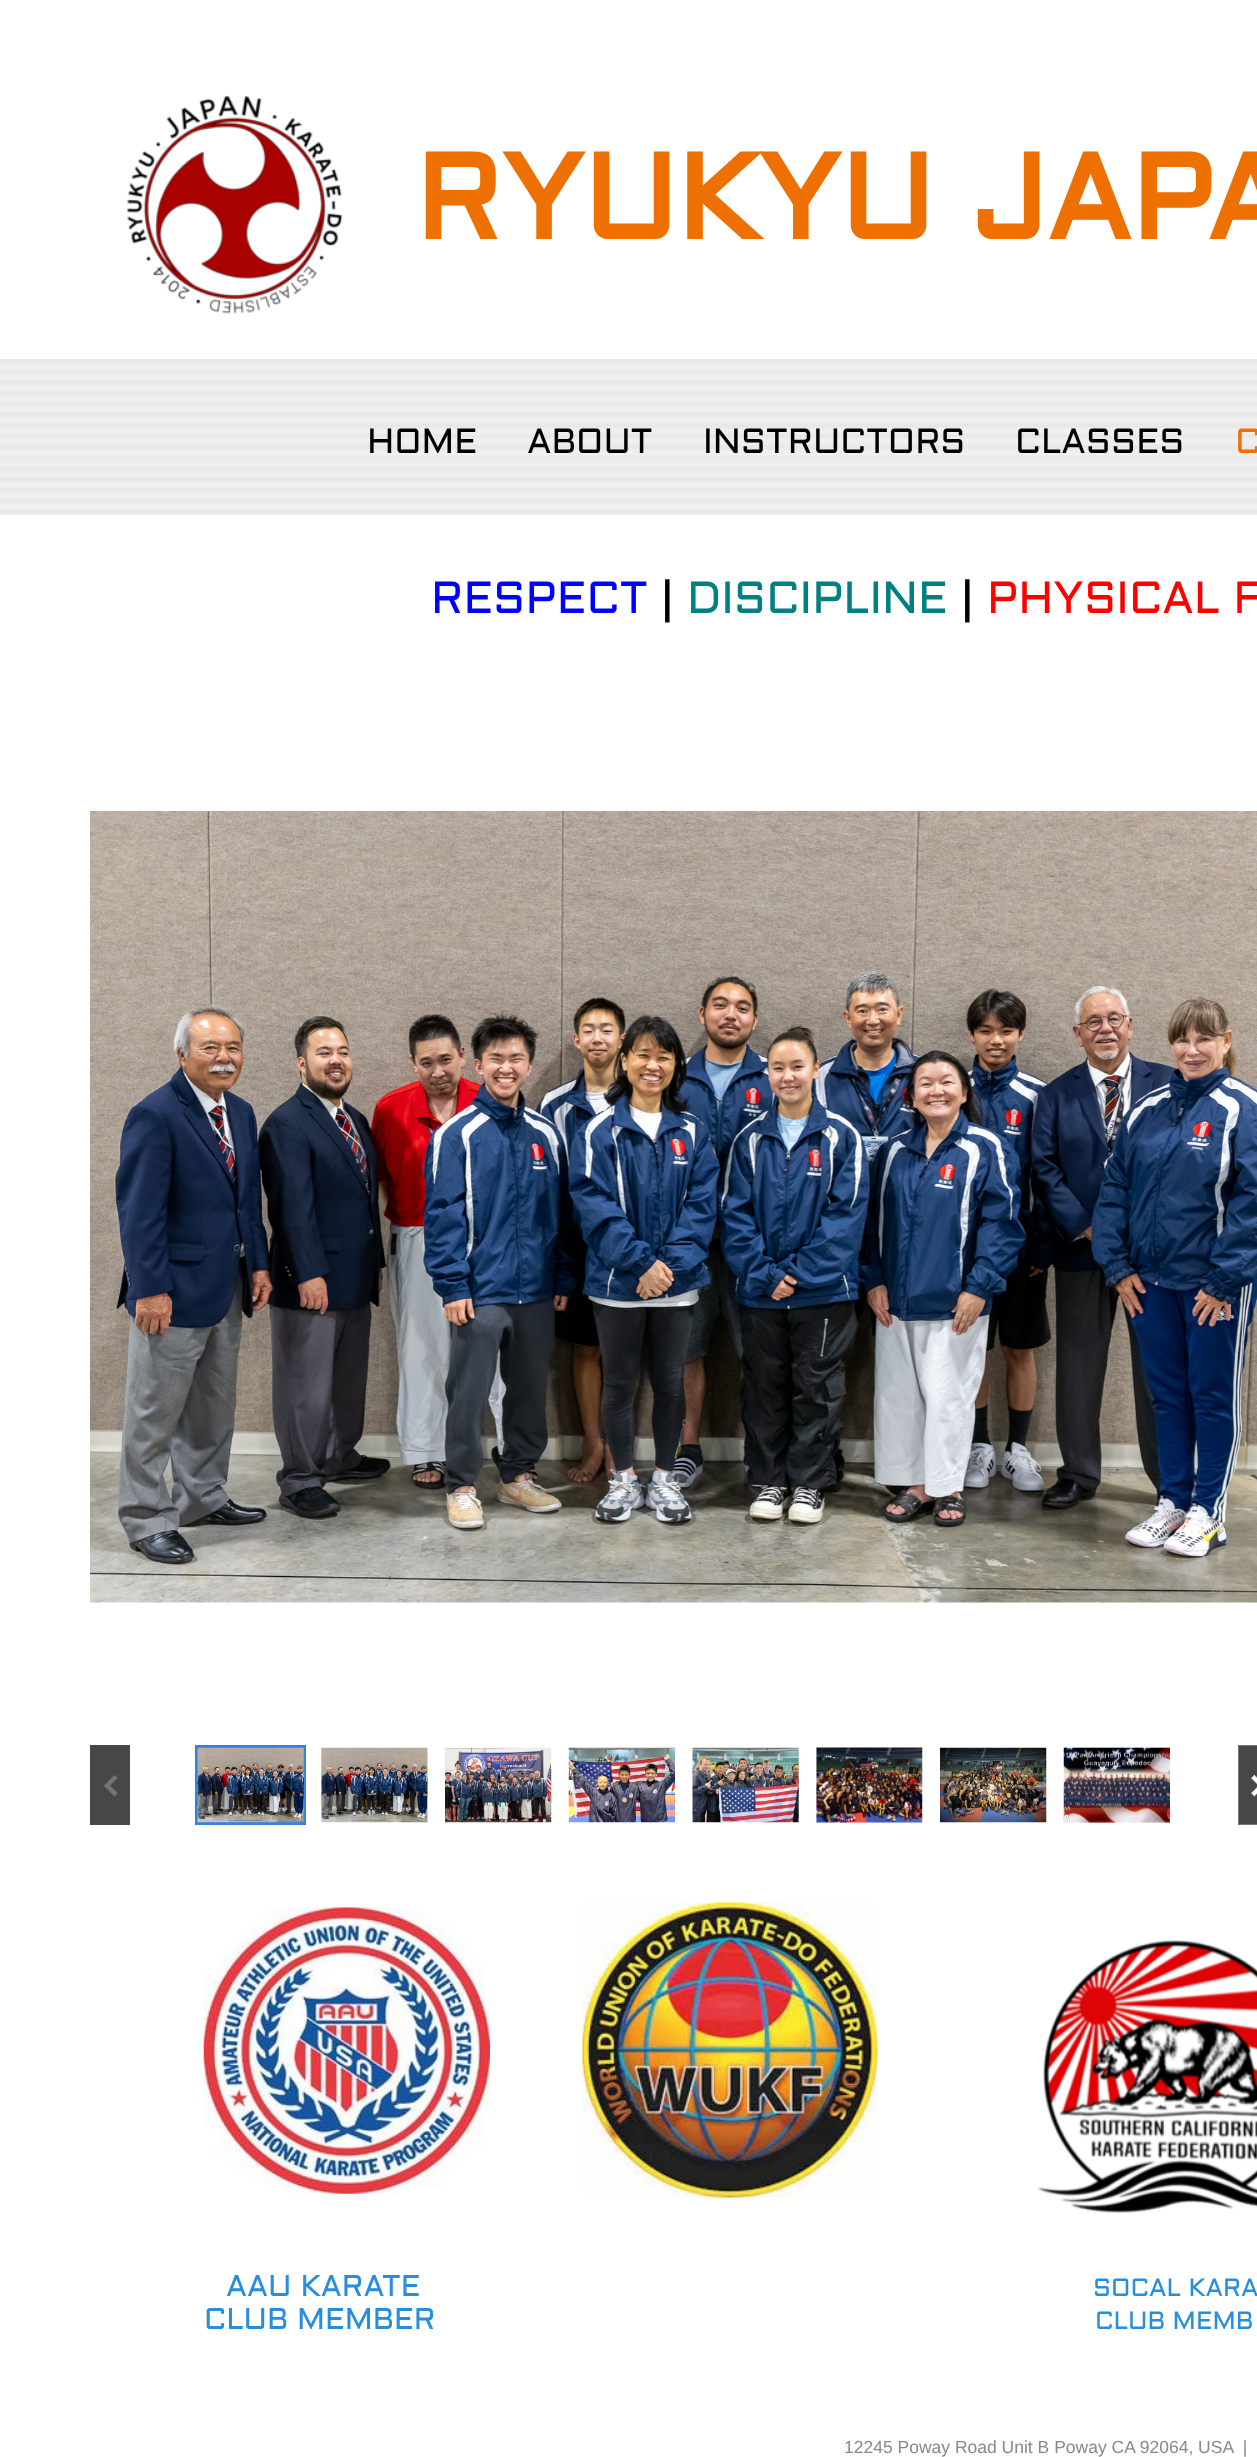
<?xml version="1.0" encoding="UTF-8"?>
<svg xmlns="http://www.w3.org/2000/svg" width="1257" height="2457">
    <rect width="100%" height="100%" fill="#FFFFFF"/>
    <image x="127" y="95" width="216" height="219" href="img_01.png"/>
    <text x="415" y="239" font-family="Aldrich" font-size="120" font-weight="700" fill="#ED7000">RYUKYU JAPA</text>
    <image x="0" y="359" width="1257" height="156" href="img_02.png"/>
    <text x="367" y="453" font-family="Aldrich" font-size="35" fill="#000000">HOME</text>
    <text x="527" y="453" font-family="Aldrich" font-size="35" fill="#000000">ABOUT</text>
    <text x="703" y="453" font-family="Aldrich" font-size="35" fill="#000000">INSTRUCTORS</text>
    <text x="1015" y="453" font-family="Aldrich" font-size="35" fill="#000000">CLASSES</text>
    <text x="1235" y="453" font-family="Aldrich" font-size="35" fill="#ED7000">C</text>
    <text x="431" y="613" font-family="Aldrich" font-size="45" fill="#0000FF">RESPECT</text>
    <text x="661" y="613" font-family="Aldrich" font-size="45" fill="#000000">|</text>
    <text x="687" y="613" font-family="Aldrich" font-size="45" fill="#008080">DISCIPLINE</text>
    <text x="961" y="613" font-family="Aldrich" font-size="45" fill="#000000">|</text>
    <text x="987" y="613" font-family="Aldrich" font-size="45" fill="#FF0000">PHYSICAL F</text>
    <image x="90" y="811" width="1167" height="792" href="img_03.png"/>
    <rect x="90" y="1745" width="40" height="80" fill="#474747"/>
    <image x="103" y="1775" width="15" height="22" href="img_04.png"/>
    <rect x="195" y="1745" width="111" height="80" fill="#3182E6"/>
    <image x="197" y="1747" width="107" height="76" href="img_05.png"/>
    <image x="321" y="1747" width="107" height="76" href="img_06.png"/>
    <image x="445" y="1747" width="107" height="76" href="img_07.png"/>
    <image x="568" y="1747" width="107" height="76" href="img_08.png"/>
    <image x="692" y="1747" width="107" height="76" href="img_09.png"/>
    <image x="816" y="1747" width="107" height="76" href="img_10.png"/>
    <image x="940" y="1747" width="107" height="76" href="img_11.png"/>
    <image x="1063" y="1747" width="107" height="76" href="img_12.png"/>
    <rect x="1239" y="1746" width="18" height="78" fill="#474747"/>
    <image x="1251" y="1775" width="6" height="22" href="img_13.png"/>
    <rect x="1238.5" y="1745.5" width="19" height="79" fill="none" stroke="#777777"/>
    <image x="203" y="1907" width="287" height="287" href="img_14.png"/>
    <image x="582" y="1902" width="296" height="296" href="img_15.png"/>
    <image x="1037" y="1940" width="220" height="273" href="img_16.png"/>
    <text x="226" y="2296" font-family="Aldrich" font-size="30" fill="#268DDF">AAU KARATE</text>
    <text x="204" y="2329" font-family="Aldrich" font-size="30" fill="#268DDF">CLUB MEMBER</text>
    <text x="1093" y="2296" font-family="Aldrich" font-size="25" fill="#268DDF">SOCAL KARA</text>
    <text x="1095" y="2329" font-family="Aldrich" font-size="25" fill="#268DDF">CLUB MEMB</text>
    <text x="844" y="2453" font-family="Liberation Sans" font-size="17.5" fill="#888888" xml:space="preserve">12245 Poway Road Unit B Poway CA 92064, USA  |</text>
</svg>
